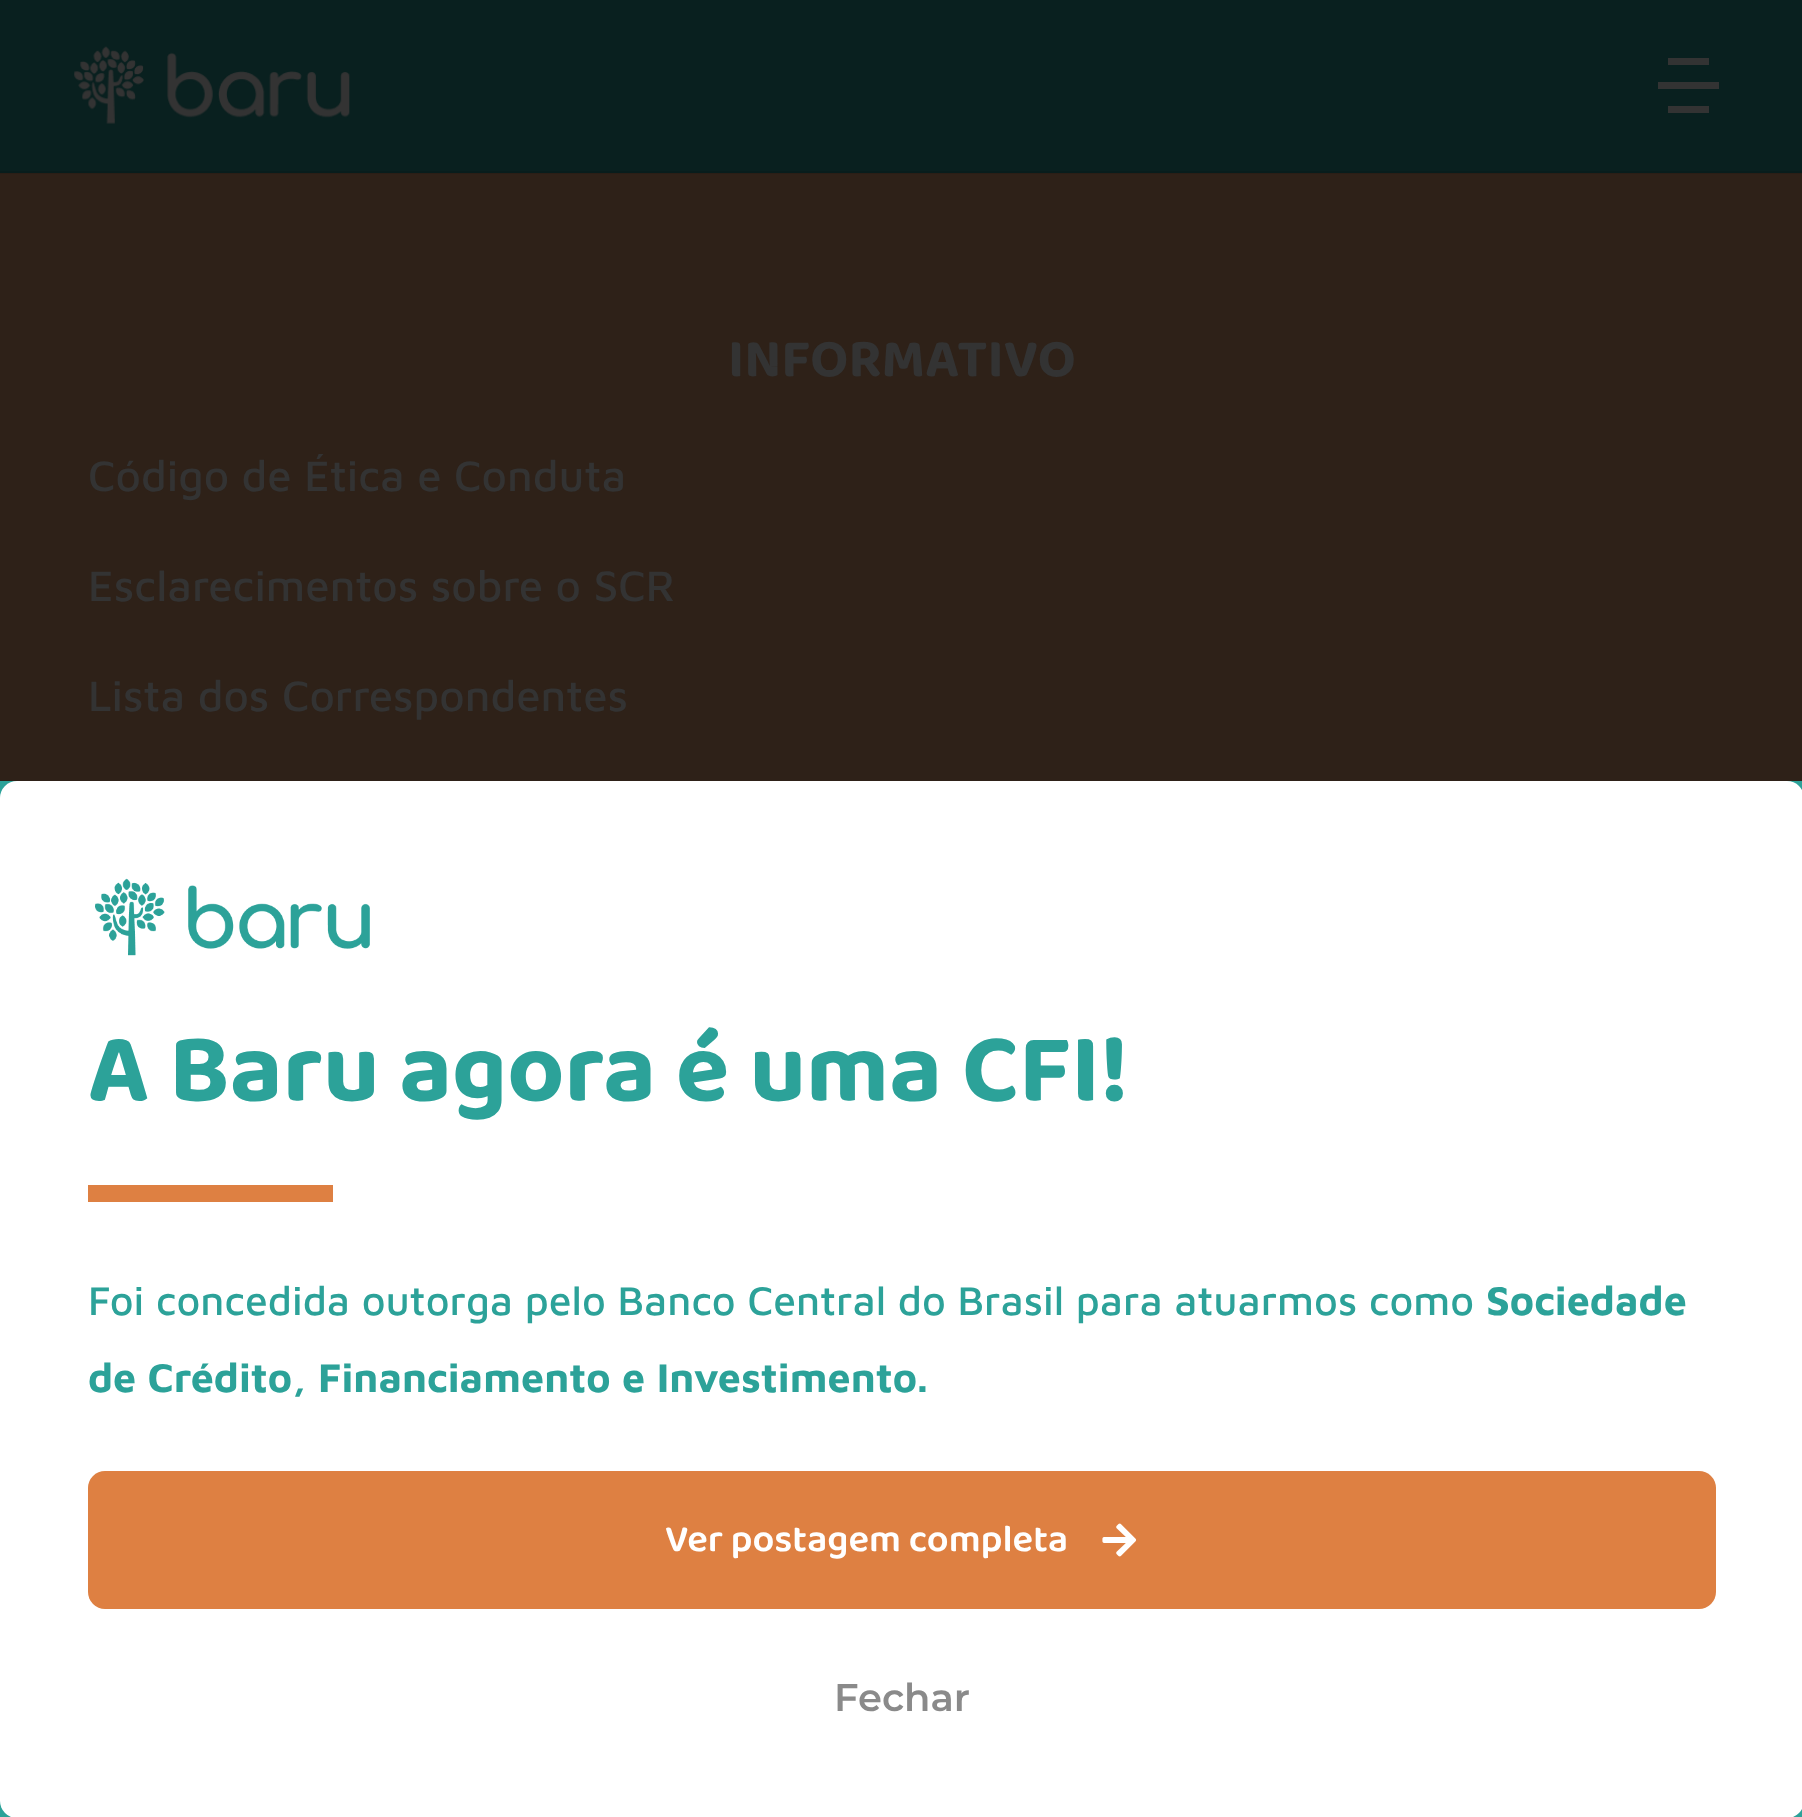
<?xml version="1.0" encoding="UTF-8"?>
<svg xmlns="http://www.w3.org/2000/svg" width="1802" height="1817">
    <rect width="100%" height="100%" fill="#2E2118"/>
    <rect x="0" y="0" width="1802" height="171" fill="#09201F"/>
    <rect x="0" y="171" width="1802" height="2" fill="#081D1C"/>
    <image x="74" y="46" width="276" height="78" href="img_01.png"/>
    <path d="M 1709 106 V 113 H 1668 V 106 Z M 1719 82 V 89 H 1658 V 82 Z M 1709 58 V 65 H 1668 V 58 Z" fill="#333333"/>
    <rect x="0" y="173" width="1802" height="1" fill="#2A1E16"/>
    <text x="728" y="376" font-family="'Baloo 2'" font-size="55" font-weight="700" fill="#333333">INFORMATIVO</text>
    <text x="88" y="491" font-family="Maven Pro" font-size="44" font-weight="500" fill="#333333">Código de Ética e Conduta</text>
    <text x="88" y="601" font-family="Maven Pro" font-size="44" font-weight="500" fill="#333333">Esclarecimentos sobre o SCR</text>
    <text x="88" y="711" font-family="Maven Pro" font-size="44" font-weight="500" fill="#333333">Lista dos Correspondentes</text>
    <rect x="0" y="781" width="1802" height="1036" fill="#2CA299"/>
    <rect x="0" y="781" width="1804" height="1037" rx="17" fill="#FFFFFF"/>
    <image x="95" y="878" width="275" height="78" href="img_02.png"/>
    <text x="88" y="1100" font-family="'Baloo 2'" font-size="99" font-weight="700" fill="#2CA299">A Baru agora é uma CFI!</text>
    <rect x="88" y="1185" width="245" height="17" fill="#DE8042"/>
    <text x="88" y="1315" font-family="Maven Pro" font-size="41.25" font-weight="500" fill="#2CA299">Foi concedida outorga pelo Banco Central do Brasil para atuarmos como</text>
    <text x="1486" y="1315" font-family="Maven Pro" font-size="41.25" font-weight="700" fill="#2CA299">Sociedade</text>
    <text x="88" y="1392" font-family="Maven Pro" font-size="41.25" font-weight="700" fill="#2CA299">de Crédito, Financiamento e Investimento.</text>
    <rect x="88" y="1471" width="1628" height="138" rx="17" fill="#DE8042"/>
    <text x="665" y="1551" font-family="'Baloo 2'" font-size="38.5" font-weight="600" fill="#FFFFFF">Ver postagem completa</text>
    <image x="1102" y="1523" width="35" height="34" href="img_03.png"/>
    <text x="834" y="1711" font-family="Montserrat" font-size="38.5" font-weight="600" fill="#8A8A8A">Fechar</text>
</svg>
